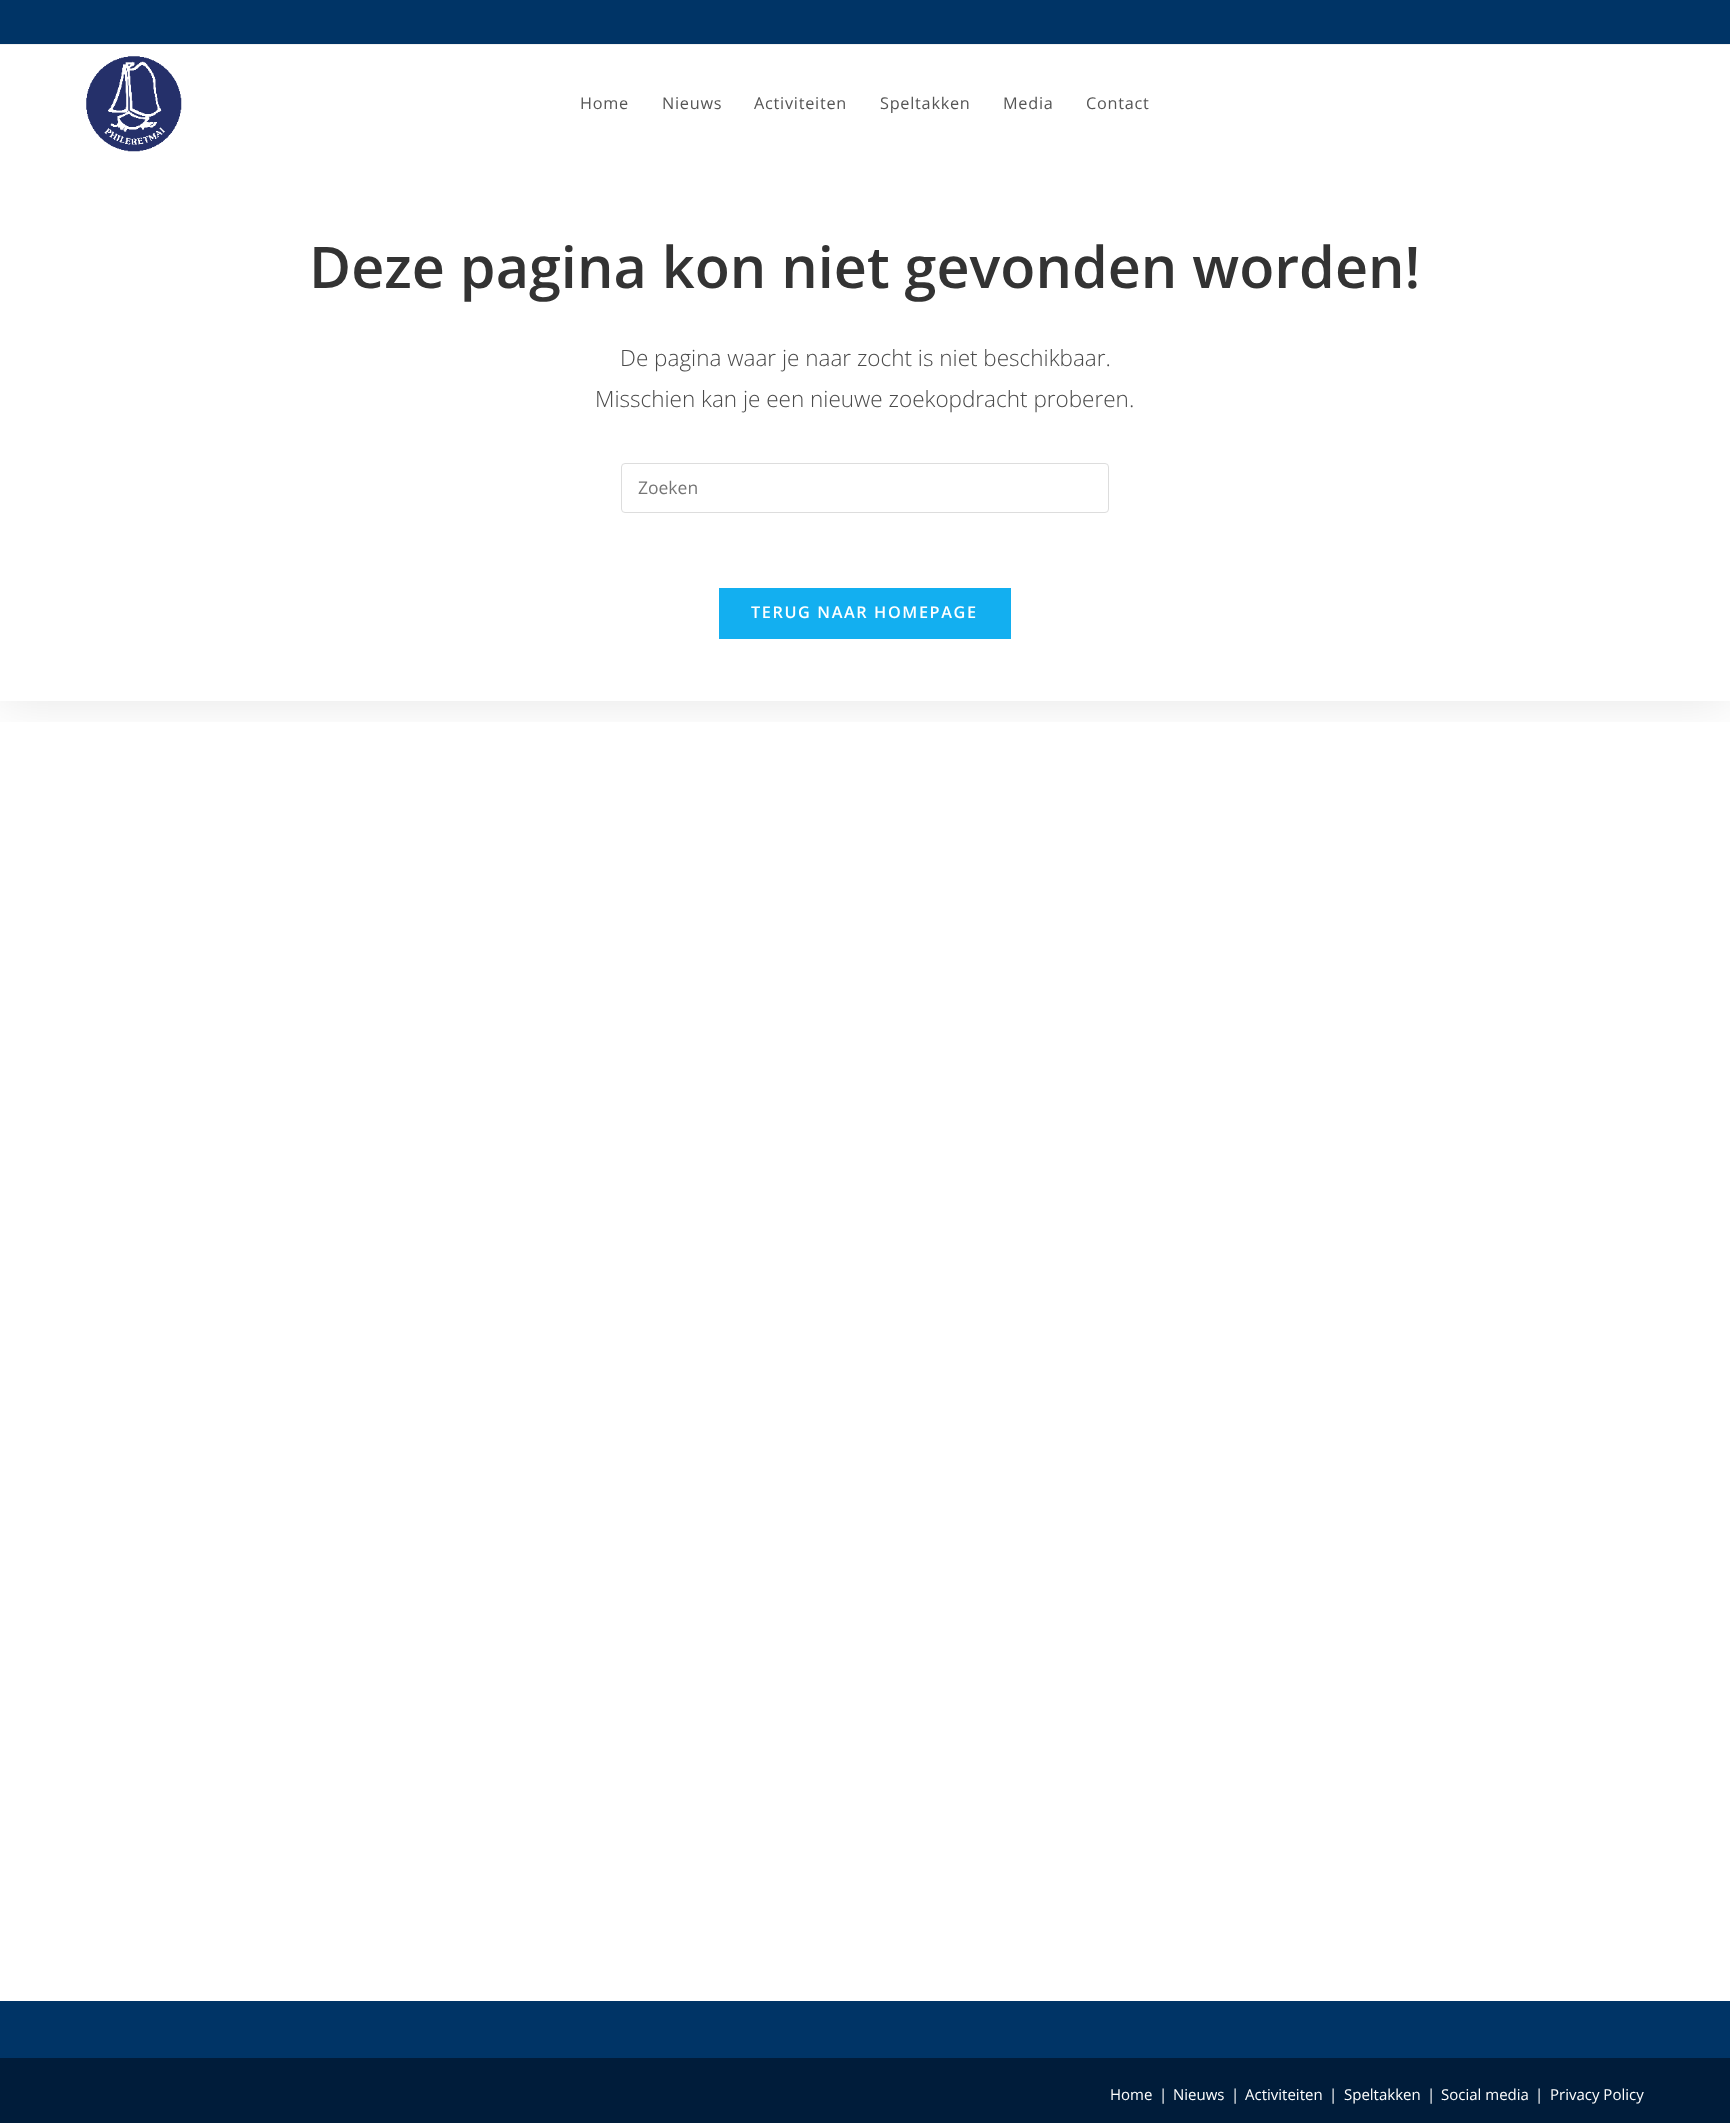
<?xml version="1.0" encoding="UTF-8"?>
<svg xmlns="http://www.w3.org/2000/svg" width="1730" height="2123">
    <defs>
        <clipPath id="clip1"><rect x="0" y="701" width="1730" height="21"/></clipPath>
        <filter id="blur1" x="-50%" y="-200%" width="200%" height="500%"><feGaussianBlur stdDeviation="25"/></filter>
    </defs>
    <rect width="100%" height="100%" fill="#FFFFFF"/>
    <rect x="0" y="0" width="1730" height="44" fill="#003466"/>
    <rect x="0" y="44" width="1730" height="1" fill="#F1F1F1"/>
    <g clip-path="url(#clip1)">
        <rect x="0" y="164" width="1730" height="537" fill="#000000" fill-opacity="0.1" filter="url(#blur1)"/>
    </g>
    <rect x="0" y="132" width="1730" height="32" fill="#FFFFFF"/>
    <image x="86" y="56" width="96" height="96" href="img_01.png"/>
    <text x="580" y="109" font-family="Open Sans" font-size="16.25" letter-spacing="0.75" fill="#555555">Home</text>
    <text x="662" y="109" font-family="Open Sans" font-size="16.25" letter-spacing="0.75" fill="#555555">Nieuws</text>
    <text x="754" y="109" font-family="Open Sans" font-size="16.25" letter-spacing="0.75" fill="#555555">Activiteiten</text>
    <text x="880" y="109" font-family="Open Sans" font-size="16.25" letter-spacing="0.75" fill="#555555">Speltakken</text>
    <text x="1003" y="109" font-family="Open Sans" font-size="16.25" letter-spacing="0.75" fill="#555555">Media</text>
    <text x="1086" y="109" font-family="Open Sans" font-size="16.25" letter-spacing="0.75" fill="#555555">Contact</text>
    <text x="309" y="288" font-family="Open Sans" font-size="57.5" font-weight="600" fill="#333333">Deze pagina kon niet gevonden worden!</text>
    <text x="620" y="366" font-family="Open Sans" font-size="22.5" font-weight="300" fill="#4A4A4A">De pagina waar je naar zocht is niet beschikbaar.</text>
    <text x="595" y="407" font-family="Open Sans" font-size="22.5" font-weight="300" fill="#4A4A4A">Misschien kan je een nieuwe zoekopdracht proberen.</text>
    <rect x="621.5" y="463.5" width="487" height="49" rx="3.5" fill="none" stroke="#DDDDDD"/>
    <text x="638" y="494" font-family="Open Sans" font-size="17.5" fill="#757575">Zoeken</text>
    <rect x="719" y="588" width="292" height="51" fill="#13AFF0"/>
    <text x="751" y="618" font-family="Open Sans" font-size="16.25" font-weight="600" letter-spacing="1.6" fill="#FFFFFF">TERUG NAAR HOMEPAGE</text>
    <rect x="0" y="2001" width="1730" height="57" fill="#003466"/>
    <rect x="0" y="2058" width="1730" height="65" fill="#001C3A"/>
    <text x="1110" y="2100" font-family="Open Sans" font-size="15" fill="#FFFFFF">Home</text>
    <text x="1159" y="2100" font-family="Open Sans" font-size="15" fill="#FFFFFF">|</text>
    <text x="1173" y="2100" font-family="Open Sans" font-size="15" fill="#FFFFFF">Nieuws</text>
    <text x="1231" y="2100" font-family="Open Sans" font-size="15" fill="#FFFFFF">|</text>
    <text x="1245" y="2100" font-family="Open Sans" font-size="15" fill="#FFFFFF">Activiteiten</text>
    <text x="1329" y="2100" font-family="Open Sans" font-size="15" fill="#FFFFFF">|</text>
    <text x="1344" y="2100" font-family="Open Sans" font-size="15" fill="#FFFFFF">Speltakken</text>
    <text x="1427" y="2100" font-family="Open Sans" font-size="15" fill="#FFFFFF">|</text>
    <text x="1441" y="2100" font-family="Open Sans" font-size="15" fill="#FFFFFF">Social media</text>
    <text x="1535" y="2100" font-family="Open Sans" font-size="15" fill="#FFFFFF">|</text>
    <text x="1550" y="2100" font-family="Open Sans" font-size="15" fill="#FFFFFF">Privacy Policy</text>
</svg>
